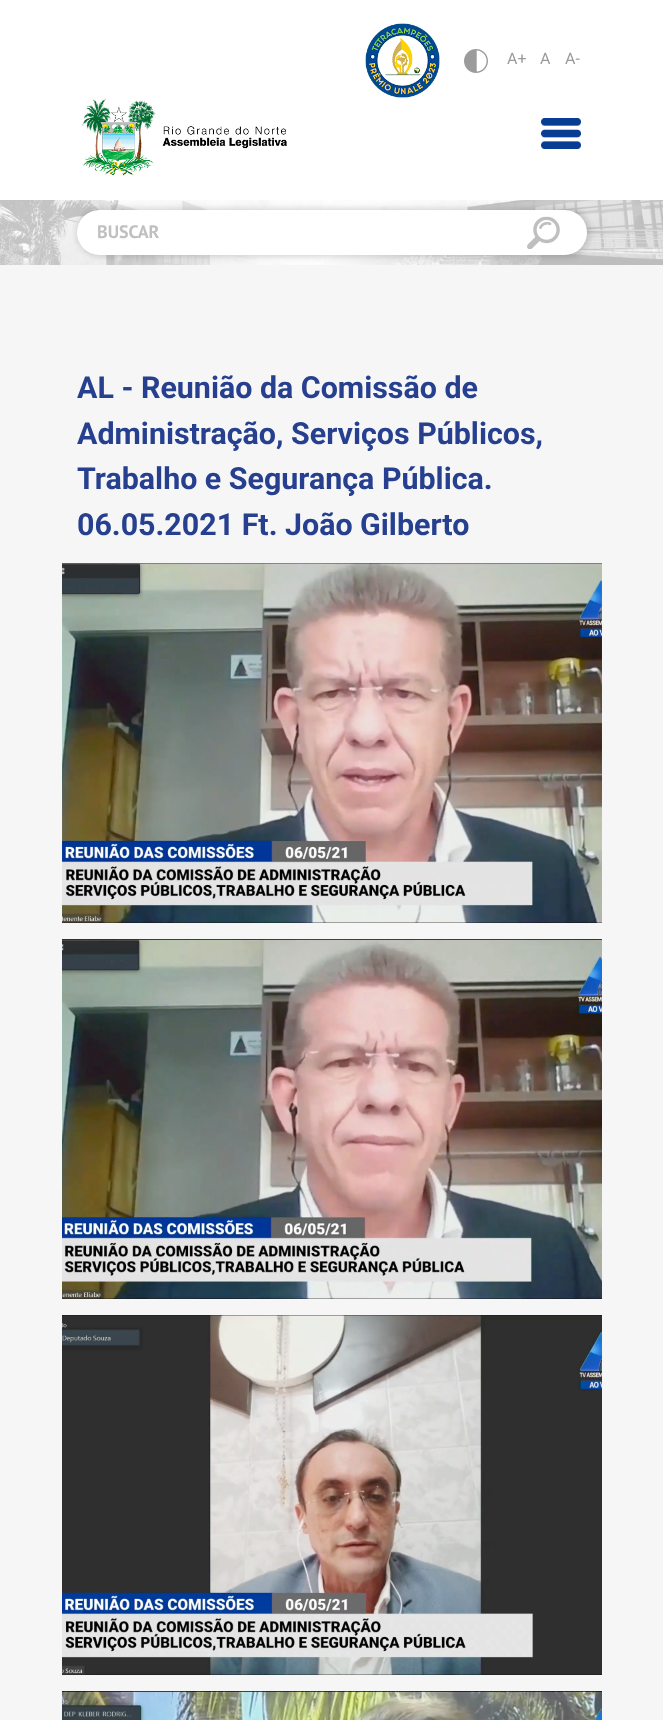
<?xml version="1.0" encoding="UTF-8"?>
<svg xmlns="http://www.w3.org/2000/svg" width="663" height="1720">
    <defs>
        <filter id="blur1" x="-50%" y="-200%" width="200%" height="500%"><feGaussianBlur stdDeviation="3"/></filter>
    </defs>
    <rect width="100%" height="100%" fill="#FFFFFF"/>
    <image x="365" y="23" width="75" height="75" href="img_01.png"/>
    <image x="464" y="49" width="24" height="24" href="img_02.png"/>
    <text x="507" y="64" font-family="Roboto" font-size="16" fill="#9B9B9B">A+</text>
    <text x="540" y="64" font-family="Roboto" font-size="16" fill="#9B9B9B">A</text>
    <text x="565" y="64" font-family="Roboto" font-size="16" fill="#9B9B9B">A-</text>
    <image x="82" y="98" width="205" height="78" href="img_03.png"/>
    <image x="541" y="118" width="40" height="31" href="img_04.png"/>
    <image x="0" y="200" width="663" height="65" href="img_05.png"/>
    <rect x="0" y="265" width="663" height="1455" fill="#F6F6F6"/>
    <rect x="77" y="208" width="514" height="49" rx="24.5" fill="#000000" fill-opacity="0.15" filter="url(#blur1)"/>
    <rect x="77" y="210" width="510" height="45" rx="22.5" fill="#FFFFFF"/>
    <text x="97" y="238" font-family="PT Sans" font-size="18" font-weight="700" fill="#C0C0C0">BUSCAR</text>
    <image x="527" y="216" width="33" height="33" href="img_06.png"/>
    <text font-family="Roboto" font-size="30.4" font-weight="700" fill="#26408F">
        <tspan x="77" y="398">AL - Reunião da Comissão de</tspan>
        <tspan x="77" y="444">Administração, Serviços Públicos,</tspan>
        <tspan x="77" y="489">Trabalho e Segurança Pública.</tspan>
        <tspan x="77" y="535">06.05.2021 Ft. João Gilberto</tspan>
    </text>
    <image x="62" y="563" width="540" height="360" href="img_07.png"/>
    <image x="62" y="939" width="540" height="360" href="img_08.png"/>
    <image x="62" y="1315" width="540" height="360" href="img_09.png"/>
    <image x="62" y="1691" width="540" height="29" href="img_10.png"/>
</svg>
